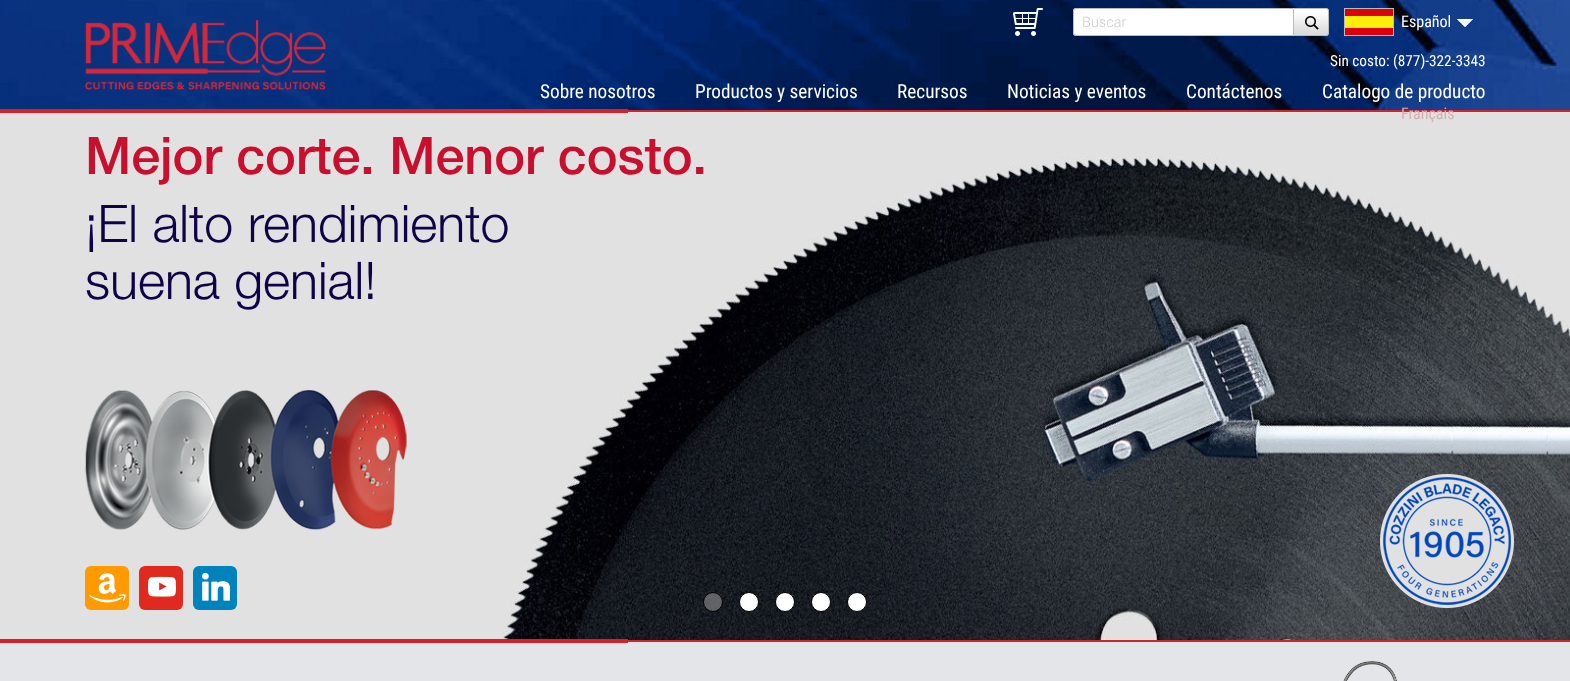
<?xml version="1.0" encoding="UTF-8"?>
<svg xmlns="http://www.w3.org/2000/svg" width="1570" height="681">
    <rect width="100%" height="100%" fill="#E4E5E8"/>
    <image x="0" y="0" width="1570" height="110" href="img_01.png"/>
    <image x="85" y="20" width="241" height="70" href="img_02.png"/>
    <image x="1013" y="8" width="30" height="28" href="img_03.png"/>
    <path d="M 1076 8 H 1293 V 36 H 1076 C 1074.5 36 1073 34.5 1073 33 V 11 C 1073 9.5 1074.5 8 1076 8 Z" fill="#FFFFFF"/>
    <path d="M 1076 8 H 1293 V 36 H 1076 C 1074 36 1073 35 1073 33 V 11 C 1073 9 1074 8 1076 8 Z M 1076 9 H 1293 V 35 H 1076 C 1075 35 1074 34 1074 33 V 11 C 1074 10 1075 9 1076 9 Z" fill="#BBBBBB" fill-rule="evenodd"/>
    <text x="1082" y="27" font-family="Roboto" font-size="14.5" font-weight="300" fill="#CCCCCC">Buscar</text>
    <path d="M 1293 8 H 1326 C 1327.5 8 1329 9.5 1329 11 V 33 C 1329 34.5 1327.5 36 1326 36 H 1293 Z" fill="#FFFFFF"/>
    <image x="1294" y="8" width="35" height="27" href="img_04.png"/>
    <path d="M 1293.5 8.5 H 1326 C 1327.5 8.5 1328.5 9.5 1328.5 11 V 33 C 1328.5 34.5 1327.5 35.5 1326 35.5 H 1293.5 Z" fill="none" stroke="#BBBBBB"/>
    <image x="1305" y="16" width="14" height="14" href="img_05.png"/>
    <image x="1457" y="19" width="16" height="8" href="img_06.png"/>
    <rect x="1344.5" y="8.5" width="49" height="27" fill="none" stroke="#BBBBBB"/>
    <image x="1345" y="9" width="48" height="26" href="img_07.png"/>
    <text x="1401" y="27" font-family="Roboto Condensed" font-size="16" fill="#FFFFFF">Español</text>
    <rect x="628" y="110" width="942" height="2" fill="#D72128"/>
    <image x="0" y="112" width="1570" height="528" href="img_08.png"/>
    <text x="1401" y="119" font-family="Roboto Condensed" font-size="16" fill="#D3B0B6">Français</text>
    <text x="1330" y="66" font-family="Roboto Condensed" font-size="15.25" fill="#FFFFFF">Sin costo: (877)-322-3343</text>
    <text x="540" y="98" font-family="Roboto Condensed" font-size="19.25" fill="#FFFFFF">Sobre nosotros</text>
    <text x="695" y="98" font-family="Roboto Condensed" font-size="19.25" fill="#FFFFFF">Productos y servicios</text>
    <text x="897" y="98" font-family="Roboto Condensed" font-size="19.25" fill="#FFFFFF">Recursos</text>
    <text x="1007" y="98" font-family="Roboto Condensed" font-size="19.25" fill="#FFFFFF">Noticias y eventos</text>
    <text x="1186" y="98" font-family="Roboto Condensed" font-size="19.25" fill="#FFFFFF">Contáctenos</text>
    <text x="1322" y="98" font-family="Roboto Condensed" font-size="19.25" fill="#FFFFFF">Catalogo de producto</text>
    <rect x="0" y="109" width="628" height="4" fill="#D72128"/>
    <text x="85" y="174" font-family="Helvetica Neue" font-size="52" font-weight="500" fill="#C8102E">Mejor corte. Menor costo.</text>
    <text font-family="Helvetica Neue" font-size="52" font-weight="300" fill="#100249">
        <tspan x="85" y="242">¡El alto rendimiento</tspan>
        <tspan x="85" y="299">suena genial!</tspan>
    </text>
    <image x="85" y="390" width="322" height="140" href="img_09.png"/>
    <image x="1380" y="474" width="134" height="134" href="img_10.png"/>
    <circle cx="713" cy="602" r="9.5" fill="#808080" fill-opacity="0.7" stroke="#000000"/>
    <circle cx="749" cy="602" r="9.5" fill="#FFFFFF" stroke="#000000"/>
    <circle cx="785" cy="602" r="9.5" fill="#FFFFFF" stroke="#000000"/>
    <circle cx="821" cy="602" r="9.5" fill="#FFFFFF" stroke="#000000"/>
    <circle cx="857" cy="602" r="9.5" fill="#FFFFFF" stroke="#000000"/>
    <rect x="85" y="566" width="44" height="44" rx="6" fill="#FF9A00"/>
    <image x="89" y="573" width="37" height="30" href="img_11.png"/>
    <rect x="139" y="566" width="44" height="44" rx="6" fill="#E02A20"/>
    <image x="148" y="576" width="28" height="21" href="img_12.png"/>
    <rect x="193" y="566" width="44" height="44" rx="6" fill="#0082BD"/>
    <image x="202" y="572" width="28" height="29" href="img_13.png"/>
    <rect x="0" y="639" width="628" height="4" fill="#D72128"/>
    <rect x="628" y="640" width="942" height="2" fill="#D72128"/>
    <image x="1343" y="661" width="54" height="20" href="img_14.png"/>
</svg>
